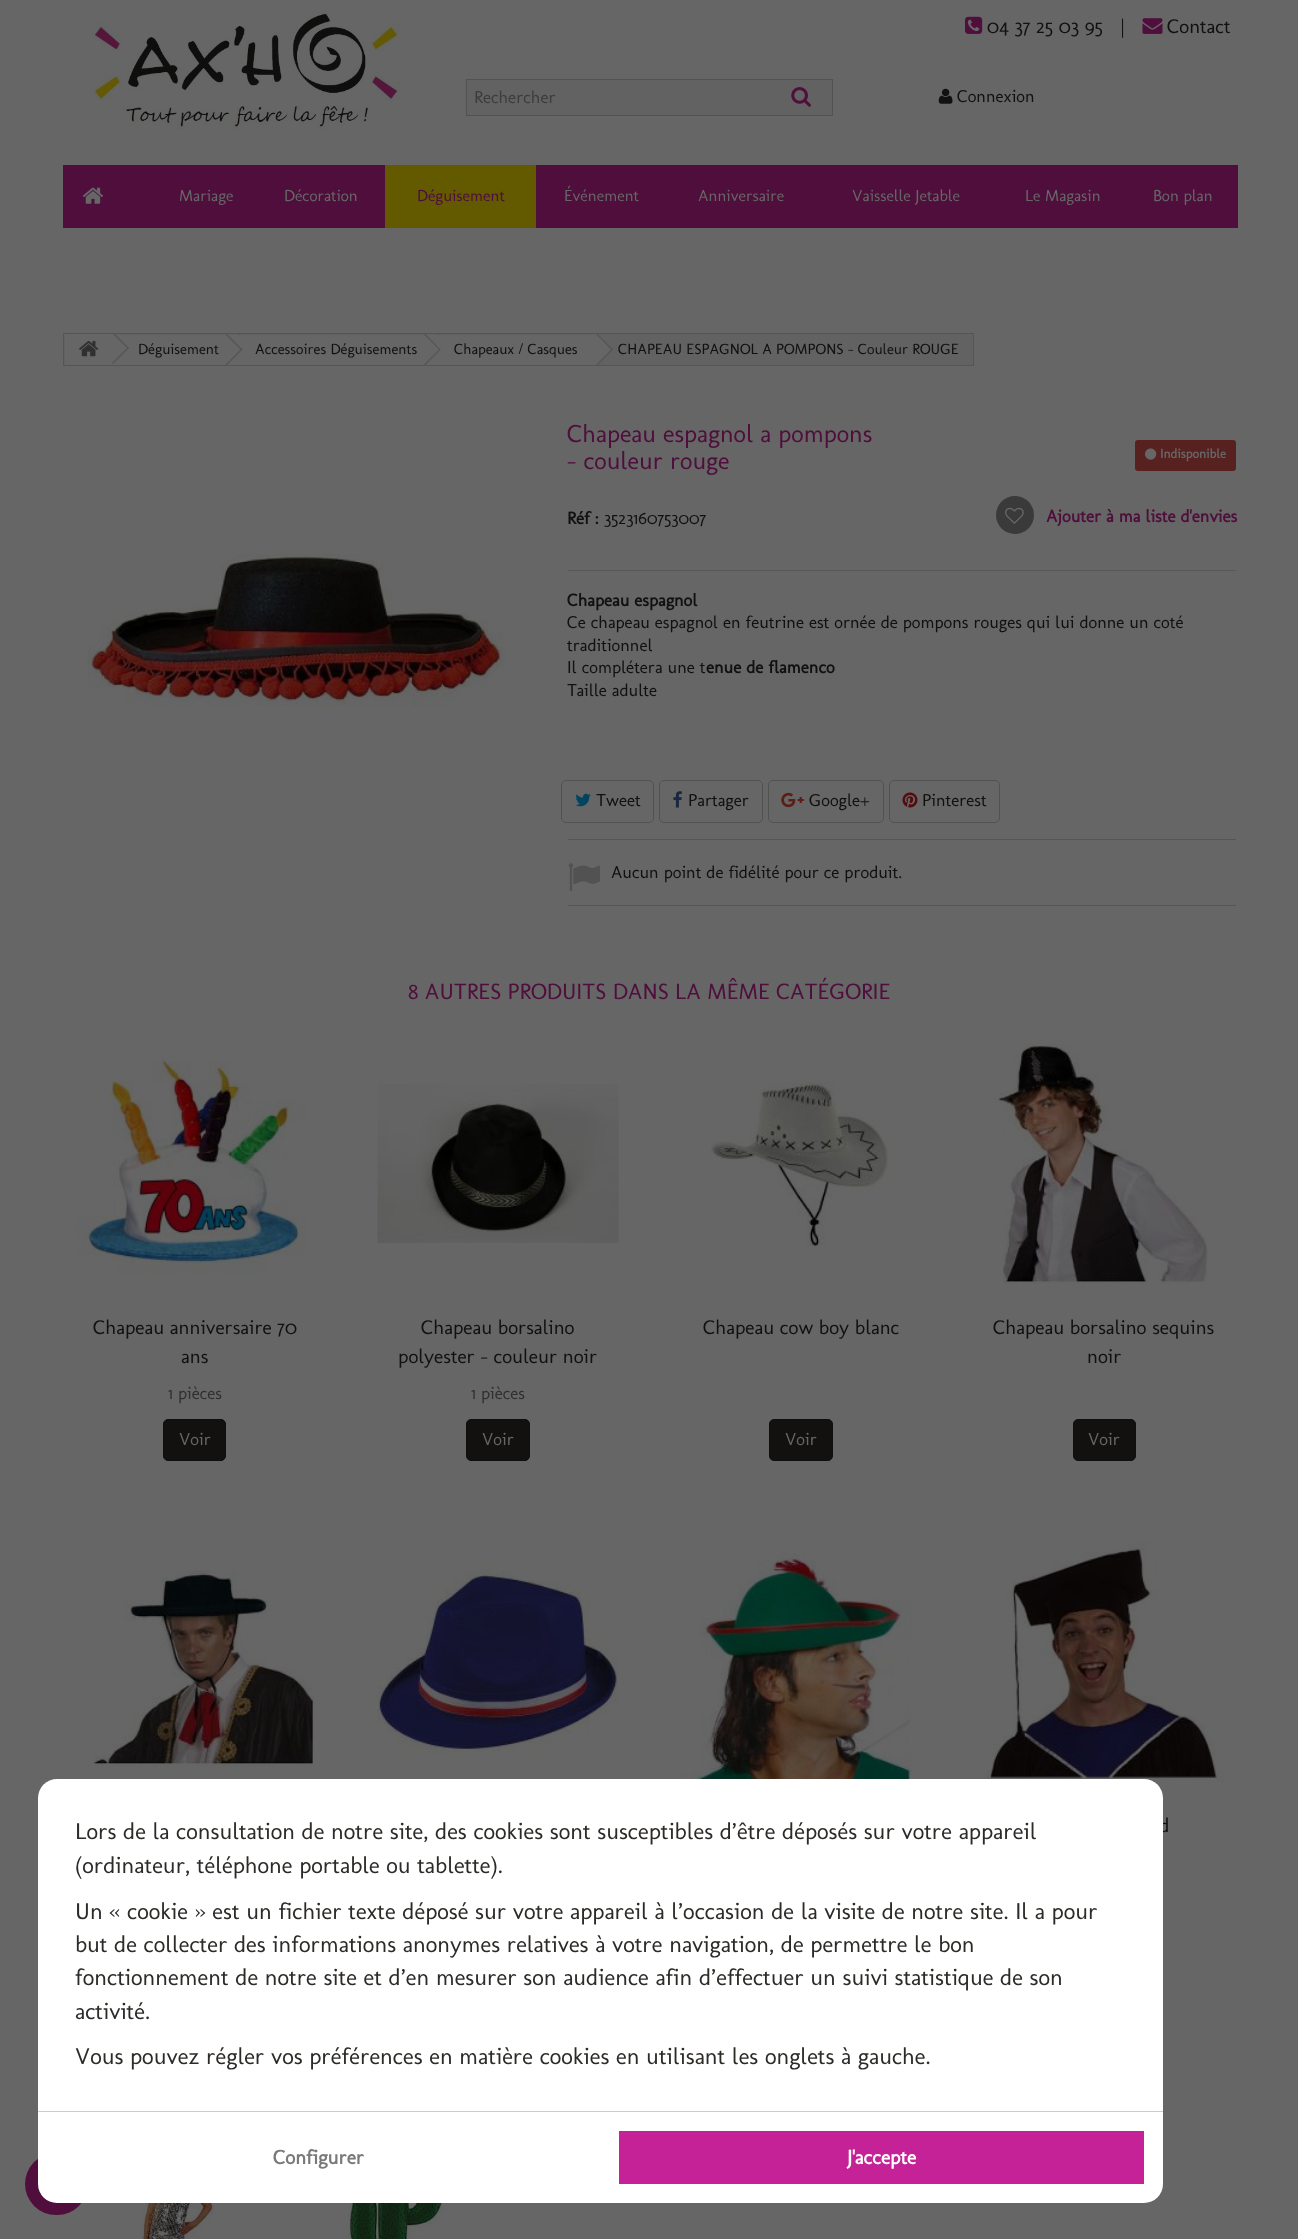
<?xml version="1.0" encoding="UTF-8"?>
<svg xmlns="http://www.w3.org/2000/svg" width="1298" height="2239">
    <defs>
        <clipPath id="clip1"><rect x="64" y="334" width="909" height="31"/></clipPath>
    </defs>
    <rect width="100%" height="100%" fill="#666666"/>
    <image x="965" y="16" width="18" height="18" href="img_01.png"/>
    <text x="987" y="33" font-family="Molengo" font-size="20" fill="#121110">04 37 25 03 95</text>
    <text x="1121" y="33" font-family="Molengo" font-size="20" fill="#121110">|</text>
    <image x="1142" y="18" width="21" height="16" href="img_02.png"/>
    <text x="1167" y="33" font-family="Molengo" font-size="20" fill="#121110">Contact</text>
    <image x="92" y="11" width="308" height="120" href="img_03.png"/>
    <rect x="466.5" y="79.5" width="366" height="36" fill="#626262" stroke="#525252"/>
    <text x="474" y="103" font-family="Molengo" font-size="17.5" fill="#3D3D3D">Rechercher</text>
    <image x="791" y="87" width="20" height="20" href="img_04.png"/>
    <image x="938" y="88" width="15" height="16" href="img_05.png"/>
    <text x="957" y="102" font-family="Molengo" font-size="17.5" fill="#121110">Connexion</text>
    <rect x="63" y="165" width="1175" height="63" fill="#4F0E3C"/>
    <image x="82" y="187" width="21" height="17" href="img_06.png"/>
    <text x="179" y="201" font-family="Molengo" font-size="16.25" fill="#666666">Mariage</text>
    <text x="284" y="201" font-family="Molengo" font-size="16.25" fill="#666666">Décoration</text>
    <rect x="385" y="165" width="151" height="63" fill="#635A00"/>
    <text x="417" y="201" font-family="Molengo" font-size="16.25" fill="#4F0E3C">Déguisement</text>
    <text x="564" y="201" font-family="Molengo" font-size="16.25" fill="#666666">Événement</text>
    <text x="698" y="201" font-family="Molengo" font-size="16.25" fill="#666666">Anniversaire</text>
    <text x="852" y="201" font-family="Molengo" font-size="16.25" fill="#666666">Vaisselle Jetable</text>
    <text x="1025" y="201" font-family="Molengo" font-size="16.25" fill="#666666">Le Magasin</text>
    <text x="1153" y="201" font-family="Molengo" font-size="16.25" fill="#666666">Bon plan</text>
    <rect x="25" y="2153" width="63" height="62" rx="31" fill="#4F0E3C"/>
    <rect x="63.5" y="333.5" width="910" height="32" fill="#626262" stroke="#565555"/>
    <rect x="65" y="334" width="48" height="31" fill="#666666"/>
    <rect x="113" y="335" width="115" height="30" fill="#666666"/>
    <g clip-path="url(#clip1)">
        <path d="M 113 332 L 129 348 L 113 364 L 97 348 Z" fill="#666666"/>
    </g>
    <image x="79" y="341" width="20" height="16" href="img_07.png"/>
    <g clip-path="url(#clip1)">
        <path d="M 113 332 L 129 348 L 128 349 L 112 333 Z" fill="#565555"/>
    </g>
    <path d="M 128 347 L 129 348 L 113 364 L 112 363 Z" fill="#565555"/>
    <text x="138" y="354" font-family="Molengo" font-size="15" fill="#121110">Déguisement</text>
    <g clip-path="url(#clip1)">
        <path d="M 239 333.5 L 255 349.5 L 239 365.5 L 223 349.5 Z" fill="#666666"/>
    </g>
    <path d="M 239 333.5 L 255 349.5 L 254 350.5 L 238 334.5 Z" fill="#565555"/>
    <rect x="228" y="335" width="198" height="30" fill="#666666"/>
    <path d="M 226.5 333.5 L 242.5 349.5 L 241.5 350.5 L 225.5 334.5 Z" fill="#565555"/>
    <path d="M 241.5 348.5 L 242.5 349.5 L 226.5 365.5 L 225.5 364.5 Z" fill="#565555"/>
    <text x="255" y="354" font-family="Molengo" font-size="15" fill="#121110">Accessoires Déguisements</text>
    <path d="M 437.5 333.5 L 453 349.5 L 437.5 365.5 L 421.5 349.5 Z" fill="#666666"/>
    <path d="M 437.5 333.5 L 453 349.5 L 452.5 350.5 L 436.5 334.5 Z" fill="#565555"/>
    <rect x="426" y="335" width="170" height="30" fill="#666666"/>
    <path d="M 425 333.5 L 440.5 349.5 L 440 350.5 L 424 334.5 Z" fill="#565555"/>
    <path d="M 440 348.5 L 440.5 349.5 L 425 365.5 L 424 364.5 Z" fill="#565555"/>
    <text x="454" y="354" font-family="Molengo" font-size="15" fill="#121110">Chapeaux / Casques</text>
    <g clip-path="url(#clip1)">
        <path d="M 597 333.5 L 613 349.5 L 597 365.5 L 581.5 349.5 Z" fill="#666666"/>
    </g>
    <path d="M 597 333.5 L 613 349.5 L 612 350.5 L 596.5 334.5 Z" fill="#565555"/>
    <path d="M 612 348.5 L 613 349.5 L 597 365.5 L 596.5 364.5 Z" fill="#565555"/>
    <text x="618" y="354" font-family="Molengo" font-size="15" fill="#121110">CHAPEAU ESPAGNOL A POMPONS - Couleur ROUGE</text>
    <image x="87" y="554" width="418" height="153" href="img_08.png"/>
    <text font-family="Molengo" font-size="25" fill="#4F0E3C">
        <tspan x="567" y="442">Chapeau espagnol a pompons</tspan>
        <tspan x="567" y="469">- couleur rouge</tspan>
    </text>
    <text x="567" y="524" font-family="Molengo" font-size="17.5" font-weight="700" fill="#121110">Réf :</text>
    <text x="604" y="524" font-family="Molengo" font-size="17.5" fill="#121110">3523160753007</text>
    <rect x="1135" y="440" width="101" height="31" rx="3" fill="#572120"/>
    <image x="1145" y="448" width="12" height="12" href="img_09.png"/>
    <text x="1160" y="458" font-family="Molengo" font-size="13" font-weight="700" fill="#666666">Indisponible</text>
    <circle cx="1015" cy="515" r="19" fill="#3A3A3A"/>
    <image x="1005" y="507" width="19" height="17" href="img_10.png"/>
    <text x="1046" y="522" font-family="Molengo" font-size="17.5" font-weight="700" fill="#4F0E3C">Ajouter à ma liste d'envies</text>
    <rect x="568" y="570" width="668" height="1" fill="#585858"/>
    <text x="567" y="606" font-family="Molengo" font-size="17.5" font-weight="700" fill="#121110">Chapeau espagnol</text>
    <text font-family="Molengo" font-size="17.5" fill="#121110">
        <tspan x="567" y="628">Ce chapeau espagnol en feutrine est ornée de pompons rouges qui lui donne un coté</tspan>
        <tspan x="567" y="651">traditionnel</tspan>
        <tspan x="567" y="673">Il complétera une t</tspan>
    </text>
    <text x="706" y="673" font-family="Molengo" font-size="17.5" font-weight="700" fill="#121110">enue de flamenco</text>
    <text x="567" y="696" font-family="Molengo" font-size="17.5" fill="#121110">Taille adulte</text>
    <rect x="561.5" y="780.5" width="92" height="42" rx="4.5" fill="none" stroke="#525252"/>
    <image x="575" y="793" width="16" height="14" href="img_11.png"/>
    <text x="596" y="806" font-family="Molengo" font-size="17.5" fill="#121110">Tweet</text>
    <rect x="659.5" y="780.5" width="103" height="42" rx="4.5" fill="none" stroke="#525252"/>
    <image x="673" y="791" width="9" height="17" href="img_12.png"/>
    <text x="688" y="806" font-family="Molengo" font-size="17.5" fill="#121110">Partager</text>
    <rect x="768.5" y="780.5" width="115" height="42" rx="4.5" fill="none" stroke="#525252"/>
    <image x="781" y="792" width="23" height="16" href="img_13.png"/>
    <text x="809" y="806" font-family="Molengo" font-size="17.5" fill="#121110">Google+</text>
    <rect x="889.5" y="780.5" width="110" height="42" rx="4.5" fill="none" stroke="#525252"/>
    <image x="902" y="792" width="16" height="16" href="img_14.png"/>
    <text x="922" y="806" font-family="Molengo" font-size="17.5" fill="#121110">Pinterest</text>
    <rect x="568" y="839" width="668" height="1" fill="#565555"/>
    <rect x="568" y="905" width="668" height="1" fill="#565555"/>
    <image x="568" y="863" width="32" height="28" href="img_15.png"/>
    <text x="611" y="878" font-family="Molengo" font-size="17.5" fill="#121110">Aucun point de fidélité pour ce produit.</text>
    <text x="408" y="999" font-family="Molengo" font-size="22.5" fill="#4F0E3C">8 AUTRES PRODUITS DANS LA MÊME CATÉGORIE</text>
    <image x="75" y="1057" width="231" height="218" href="img_16.png"/>
    <text x="93" y="1334" font-family="Molengo" font-size="20" fill="#121110">Chapeau anniversaire 70</text>
    <text x="181" y="1363" font-family="Molengo" font-size="20" fill="#121110">ans</text>
    <text x="168" y="1399" font-family="Molengo" font-size="17.5" fill="#303030">1 pièces</text>
    <rect x="163.5" y="1419.5" width="62" height="41" rx="4.5" fill="#121110" stroke="#0F0F0F"/>
    <text x="179" y="1445" font-family="Molengo" font-size="17.5" fill="#666666">Voir</text>
    <image x="377" y="1084" width="242" height="159" href="img_17.png"/>
    <text x="421" y="1334" font-family="Molengo" font-size="20" fill="#121110">Chapeau borsalino</text>
    <text x="398" y="1363" font-family="Molengo" font-size="20" fill="#121110">polyester - couleur noir</text>
    <text x="471" y="1399" font-family="Molengo" font-size="17.5" fill="#303030">1 pièces</text>
    <rect x="466.5" y="1419.5" width="63" height="41" rx="4.5" fill="#121110" stroke="#0F0F0F"/>
    <text x="482" y="1445" font-family="Molengo" font-size="17.5" fill="#666666">Voir</text>
    <image x="710" y="1082" width="182" height="165" href="img_18.png"/>
    <text x="703" y="1334" font-family="Molengo" font-size="20" fill="#121110">Chapeau cow boy blanc</text>
    <rect x="769.5" y="1419.5" width="63" height="41" rx="4.5" fill="#121110" stroke="#0F0F0F"/>
    <text x="785" y="1445" font-family="Molengo" font-size="17.5" fill="#666666">Voir</text>
    <image x="994" y="1044" width="214" height="240" href="img_19.png"/>
    <text x="993" y="1334" font-family="Molengo" font-size="20" fill="#121110">Chapeau borsalino sequins</text>
    <text x="1087" y="1363" font-family="Molengo" font-size="20" fill="#121110">noir</text>
    <rect x="1073.5" y="1419.5" width="62" height="41" rx="4.5" fill="#121110" stroke="#0F0F0F"/>
    <text x="1088" y="1445" font-family="Molengo" font-size="17.5" fill="#666666">Voir</text>
    <image x="94" y="1570" width="221" height="199" href="img_20.png"/>
    <image x="377" y="1563" width="242" height="191" href="img_21.png"/>
    <image x="681" y="1550" width="232" height="229" href="img_22.png"/>
    <image x="984" y="1542" width="240" height="241" href="img_23.png"/>
    <text x="1159" y="1832" font-family="Molengo" font-size="20" fill="#121110">d</text>
    <image x="139" y="2203" width="75" height="36" href="img_24.png"/>
    <image x="348" y="2203" width="97" height="36" href="img_25.png"/>
    <rect x="38" y="1779" width="1125" height="424" rx="19" fill="#FFFFFF"/>
    <text font-family="Molengo" font-size="23.35" fill="#2D2B28">
        <tspan x="75" y="1839">Lors de la consultation de notre site, des cookies sont susceptibles d’être déposés sur votre appareil</tspan>
        <tspan x="75" y="1873">(ordinateur, téléphone portable ou tablette).</tspan>
        <tspan x="75" y="1919">Un « cookie » est un fichier texte déposé sur votre appareil à l’occasion de la visite de notre site. Il a pour</tspan>
        <tspan x="75" y="1952">but de collecter des informations anonymes relatives à votre navigation, de permettre le bon</tspan>
        <tspan x="75" y="1985">fonctionnement de notre site et d’en mesurer son audience afin d’effectuer un suivi statistique de son</tspan>
        <tspan x="75" y="2019">activité.</tspan>
        <tspan x="75" y="2064">Vous pouvez régler vos préférences en matière cookies en utilisant les onglets à gauche.</tspan>
    </text>
    <rect x="38" y="2111" width="1125" height="1" fill="#CCCCCC"/>
    <text x="273" y="2164" font-family="Molengo" font-size="20" font-weight="700" fill="#7A7A7A">Configurer</text>
    <rect x="619" y="2131" width="525" height="53" fill="#C52297"/>
    <text x="847" y="2164" font-family="Molengo" font-size="20" font-weight="700" fill="#FFFFFF">J'accepte</text>
</svg>
